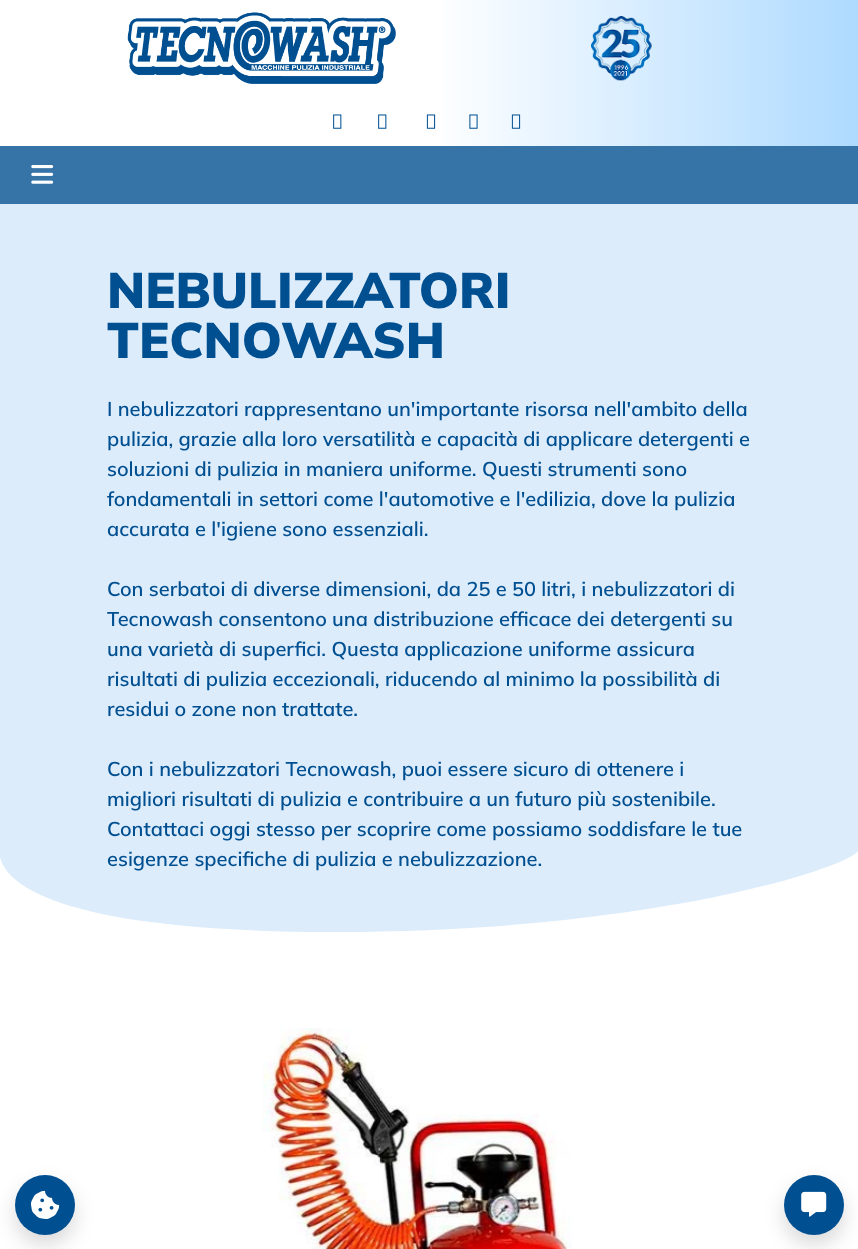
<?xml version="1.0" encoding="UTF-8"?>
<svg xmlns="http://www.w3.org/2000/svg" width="858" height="1249">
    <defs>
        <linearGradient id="g1" gradientUnits="userSpaceOnUse" x1="0" y1="73" x2="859" y2="73"><stop offset="0.5" stop-color="#FFFFFF"/><stop offset="1" stop-color="#AEDAFF"/></linearGradient>
        <filter id="blur1" x="-50%" y="-200%" width="200%" height="500%"><feGaussianBlur stdDeviation="10"/></filter>
    </defs>
    <rect width="100%" height="100%" fill="#FFFFFF"/>
    <rect x="443" y="0" width="415" height="146" fill="url(#g1)"/>
    <image x="127" y="12" width="269" height="72" href="img_01.png"/>
    <image x="590" y="15" width="63" height="66" href="img_02.png"/>
    <image x="333" y="114" width="9" height="15" href="img_03.png"/>
    <image x="378" y="114" width="9" height="15" href="img_03.png"/>
    <image x="426" y="114" width="10" height="15" href="img_04.png"/>
    <image x="469" y="114" width="9" height="15" href="img_05.png"/>
    <image x="511" y="114" width="10" height="15" href="img_06.png"/>
    <rect x="0" y="146" width="858" height="58" fill="#3674A8"/>
    <image x="31" y="165" width="23" height="19" href="img_07.png"/>
    <rect x="0" y="204" width="858" height="728" fill="#DCECFB"/>
    <text font-family="Mulish" font-size="50" font-weight="900" fill="#004F91">
        <tspan x="107" y="308">NEBULIZZATORI</tspan>
        <tspan x="107" y="358">TECNOWASH</tspan>
    </text>
    <text font-family="Mulish" font-size="20" font-weight="600" fill="#004F91">
        <tspan x="107" y="416">I nebulizzatori rappresentano un'importante risorsa nell'ambito della</tspan>
        <tspan x="107" y="446">pulizia, grazie alla loro versatilità e capacità di applicare detergenti e</tspan>
        <tspan x="107" y="476">soluzioni di pulizia in maniera uniforme. Questi strumenti sono</tspan>
        <tspan x="107" y="506">fondamentali in settori come l'automotive e l'edilizia, dove la pulizia</tspan>
        <tspan x="107" y="536">accurata e l'igiene sono essenziali.</tspan>
    </text>
    <text font-family="Mulish" font-size="20" font-weight="600" fill="#004F91">
        <tspan x="107" y="596">Con serbatoi di diverse dimensioni, da 25 e 50 litri, i nebulizzatori di</tspan>
        <tspan x="107" y="626">Tecnowash consentono una distribuzione efficace dei detergenti su</tspan>
        <tspan x="107" y="656">una varietà di superfici. Questa applicazione uniforme assicura</tspan>
        <tspan x="107" y="686">risultati di pulizia eccezionali, riducendo al minimo la possibilità di</tspan>
        <tspan x="107" y="716">residui o zone non trattate.</tspan>
    </text>
    <text font-family="Mulish" font-size="20" font-weight="600" fill="#004F91">
        <tspan x="107" y="776">Con i nebulizzatori Tecnowash, puoi essere sicuro di ottenere i</tspan>
        <tspan x="107" y="806">migliori risultati di pulizia e contribuire a un futuro più sostenibile.</tspan>
        <tspan x="107" y="836">Contattaci oggi stesso per scoprire come possiamo soddisfare le tue</tspan>
    </text>
    <path d="M 330 932 C 652 933 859 865 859 849 V 935 H -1 V 849 C -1 865 7 931 330 932 Z" fill="#FFFFFF"/>
    <text x="107" y="866" font-family="Mulish" font-size="20" font-weight="600" fill="#004F91">esigenze specifiche di pulizia e nebulizzazione.</text>
    <rect x="15" y="1185" width="60" height="60" rx="30" fill="#000000" fill-opacity="0.15" filter="url(#blur1)"/>
    <circle cx="45" cy="1205" r="30" fill="#004F91"/>
    <image x="31" y="1190" width="29" height="29" href="img_08.png"/>
    <image x="262" y="1028" width="310" height="221" href="img_09.png"/>
    <rect x="784" y="1185" width="60" height="60" rx="30" fill="#000000" fill-opacity="0.15" filter="url(#blur1)"/>
    <circle cx="814" cy="1205" r="30" fill="#004F91"/>
    <image x="801" y="1191" width="26" height="26" href="img_10.png"/>
</svg>
